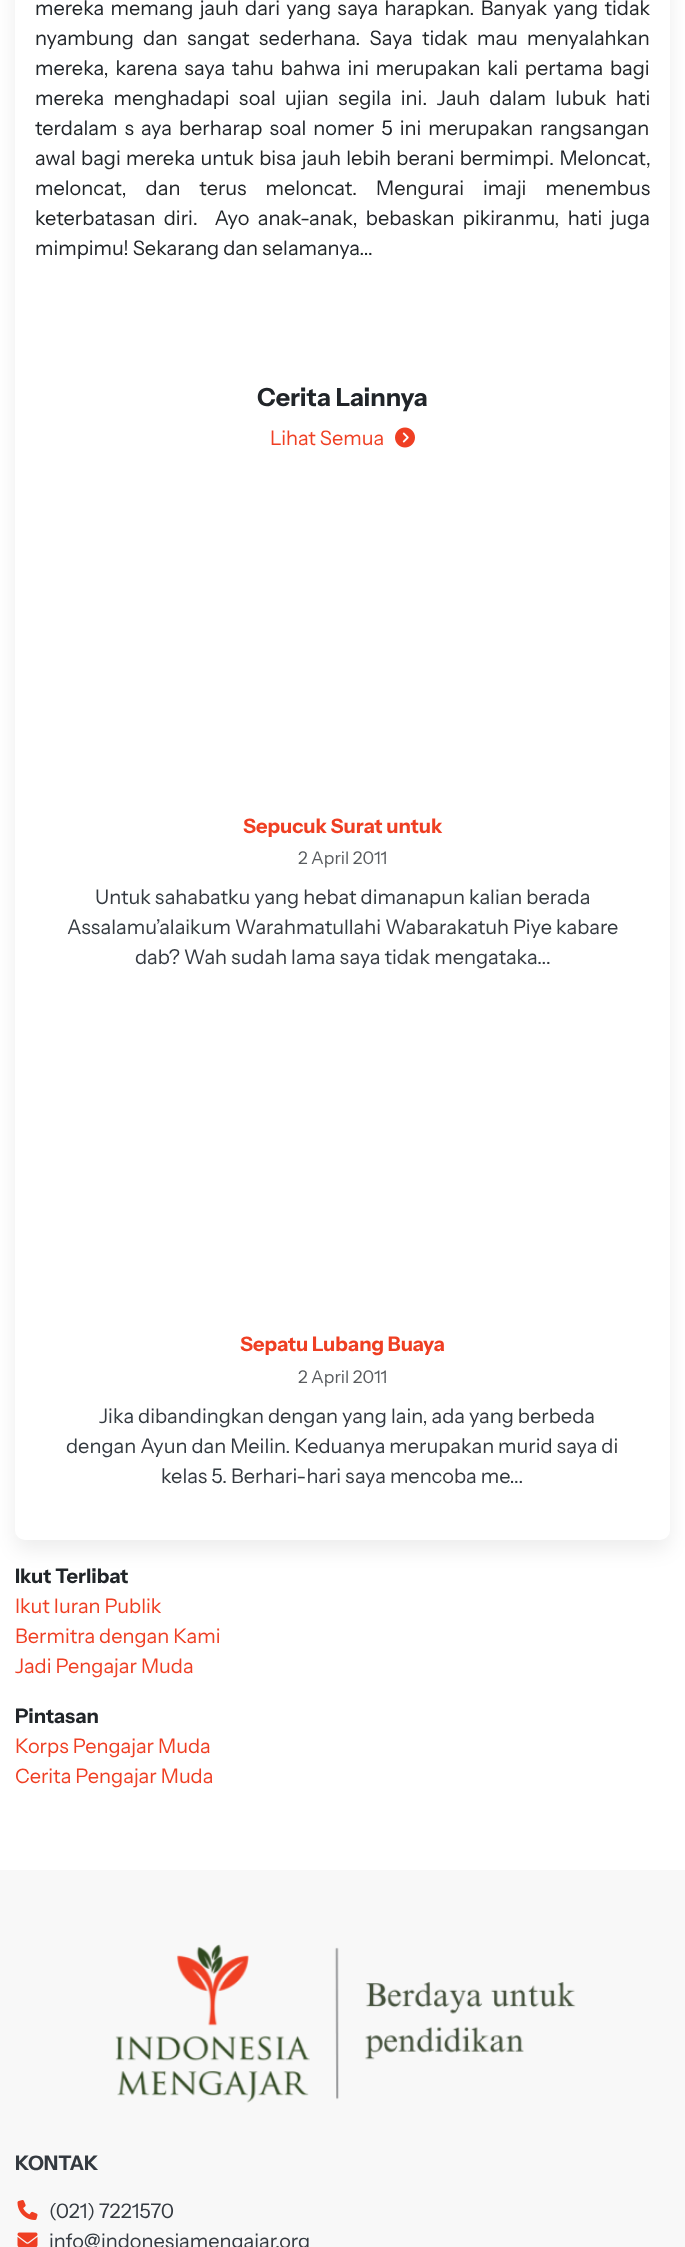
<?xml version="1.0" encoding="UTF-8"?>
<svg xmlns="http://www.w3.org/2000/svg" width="685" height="2247">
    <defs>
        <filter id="blur1" x="-50%" y="-200%" width="200%" height="500%"><feGaussianBlur stdDeviation="10"/></filter>
    </defs>
    <rect width="100%" height="100%" fill="#FFFFFF"/>
    <rect x="15" y="-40" width="655" height="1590" rx="10" fill="#000000" fill-opacity="0.07" filter="url(#blur1)"/>
    <rect x="15" y="-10" width="655" height="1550" rx="10" fill="#FFFFFF"/>
    <text font-family="Instrument Sans" font-size="20" fill="#212529" xml:space="preserve"><tspan x="35" y="15" word-spacing="2.25">mereka memang jauh dari yang saya harapkan. Banyak yang tidak</tspan><tspan x="35" y="45" word-spacing="5.25">nyambung dan sangat sederhana. Saya tidak mau menyalahkan</tspan><tspan x="35" y="75" word-spacing="2.75">mereka, karena saya tahu bahwa ini merupakan kali pertama bagi</tspan><tspan x="35" y="105" word-spacing="5.25">mereka menghadapi soal ujian segila ini. Jauh dalam lubuk hati</tspan><tspan x="35" y="135" word-spacing="3">terdalam s aya berharap soal nomer 5 ini merupakan rangsangan</tspan><tspan x="35" y="165" word-spacing="1.25">awal bagi mereka untuk bisa jauh lebih berani bermimpi. Meloncat,</tspan><tspan x="35" y="195" word-spacing="15">meloncat, dan terus meloncat. Mengurai imaji menembus</tspan><tspan x="35" y="225" word-spacing="4.25">keterbatasan diri.  Ayo anak-anak, bebaskan pikiranmu, hati juga</tspan><tspan x="35" y="255">mimpimu! Sekarang dan selamanya...</tspan></text>
    <text x="257" y="406" font-family="Instrument Sans" font-size="25" font-weight="700" fill="#212529">Cerita Lainnya</text>
    <text x="270" y="445" font-family="Instrument Sans" font-size="20" fill="#EF3F23">Lihat Semua</text>
    <image x="395" y="427" width="20" height="21" href="img_01.png"/>
    <text x="243" y="833" font-family="Instrument Sans" font-size="20" font-weight="700" fill="#EF3F23">Sepucuk Surat untuk</text>
    <text x="298" y="864" font-family="Instrument Sans" font-size="17.5" fill="#595C5F">2 April 2011</text>
    <text x="95" y="904" font-family="Instrument Sans" font-size="20" fill="#343A40">Untuk sahabatku yang hebat dimanapun kalian berada</text>
    <text x="67" y="934" font-family="Instrument Sans" font-size="20" fill="#343A40">Assalamu’alaikum Warahmatullahi Wabarakatuh Piye kabare</text>
    <text x="135" y="964" font-family="Instrument Sans" font-size="20" fill="#343A40">dab? Wah sudah lama saya tidak mengataka...</text>
    <text x="240" y="1351" font-family="Instrument Sans" font-size="20" font-weight="700" fill="#EF3F23">Sepatu Lubang Buaya</text>
    <text x="298" y="1383" font-family="Instrument Sans" font-size="17.5" fill="#595C5F">2 April 2011</text>
    <text x="99" y="1423" font-family="Instrument Sans" font-size="20" fill="#343A40">Jika dibandingkan dengan yang lain, ada yang berbeda</text>
    <text x="66" y="1453" font-family="Instrument Sans" font-size="20" fill="#343A40">dengan Ayun dan Meilin. Keduanya merupakan murid saya di</text>
    <text x="161" y="1483" font-family="Instrument Sans" font-size="20" fill="#343A40">kelas 5. Berhari-hari saya mencoba me...</text>
    <text x="15" y="1583" font-family="Instrument Sans" font-size="20" font-weight="700" fill="#212529">Ikut Terlibat</text>
    <text font-family="Instrument Sans" font-size="20" fill="#EF3F23">
        <tspan x="15" y="1613">Ikut Iuran Publik</tspan>
        <tspan x="15" y="1643">Bermitra dengan Kami</tspan>
        <tspan x="15" y="1673">Jadi Pengajar Muda</tspan>
    </text>
    <text x="15" y="1723" font-family="Instrument Sans" font-size="20" font-weight="700" fill="#212529">Pintasan</text>
    <text font-family="Instrument Sans" font-size="20" fill="#EF3F23">
        <tspan x="15" y="1753">Korps Pengajar Muda</tspan>
        <tspan x="15" y="1783">Cerita Pengajar Muda</tspan>
    </text>
    <rect x="0" y="1870" width="685" height="377" fill="#F8F8F8"/>
    <image x="115" y="1944" width="461" height="159" href="img_02.png"/>
    <text x="15" y="2170" font-family="Instrument Sans" font-size="20" font-weight="700" fill="#343A40">KONTAK</text>
    <image x="17" y="2200" width="21" height="20" href="img_03.png"/>
    <text x="49" y="2218" font-family="Instrument Sans" font-size="20" fill="#343A40">(021) 7221570</text>
    <image x="17" y="2232" width="21" height="15" href="img_04.png"/>
    <text x="49" y="2248" font-family="Instrument Sans" font-size="20" fill="#343A40">info@indonesiamengajar.org</text>
</svg>
